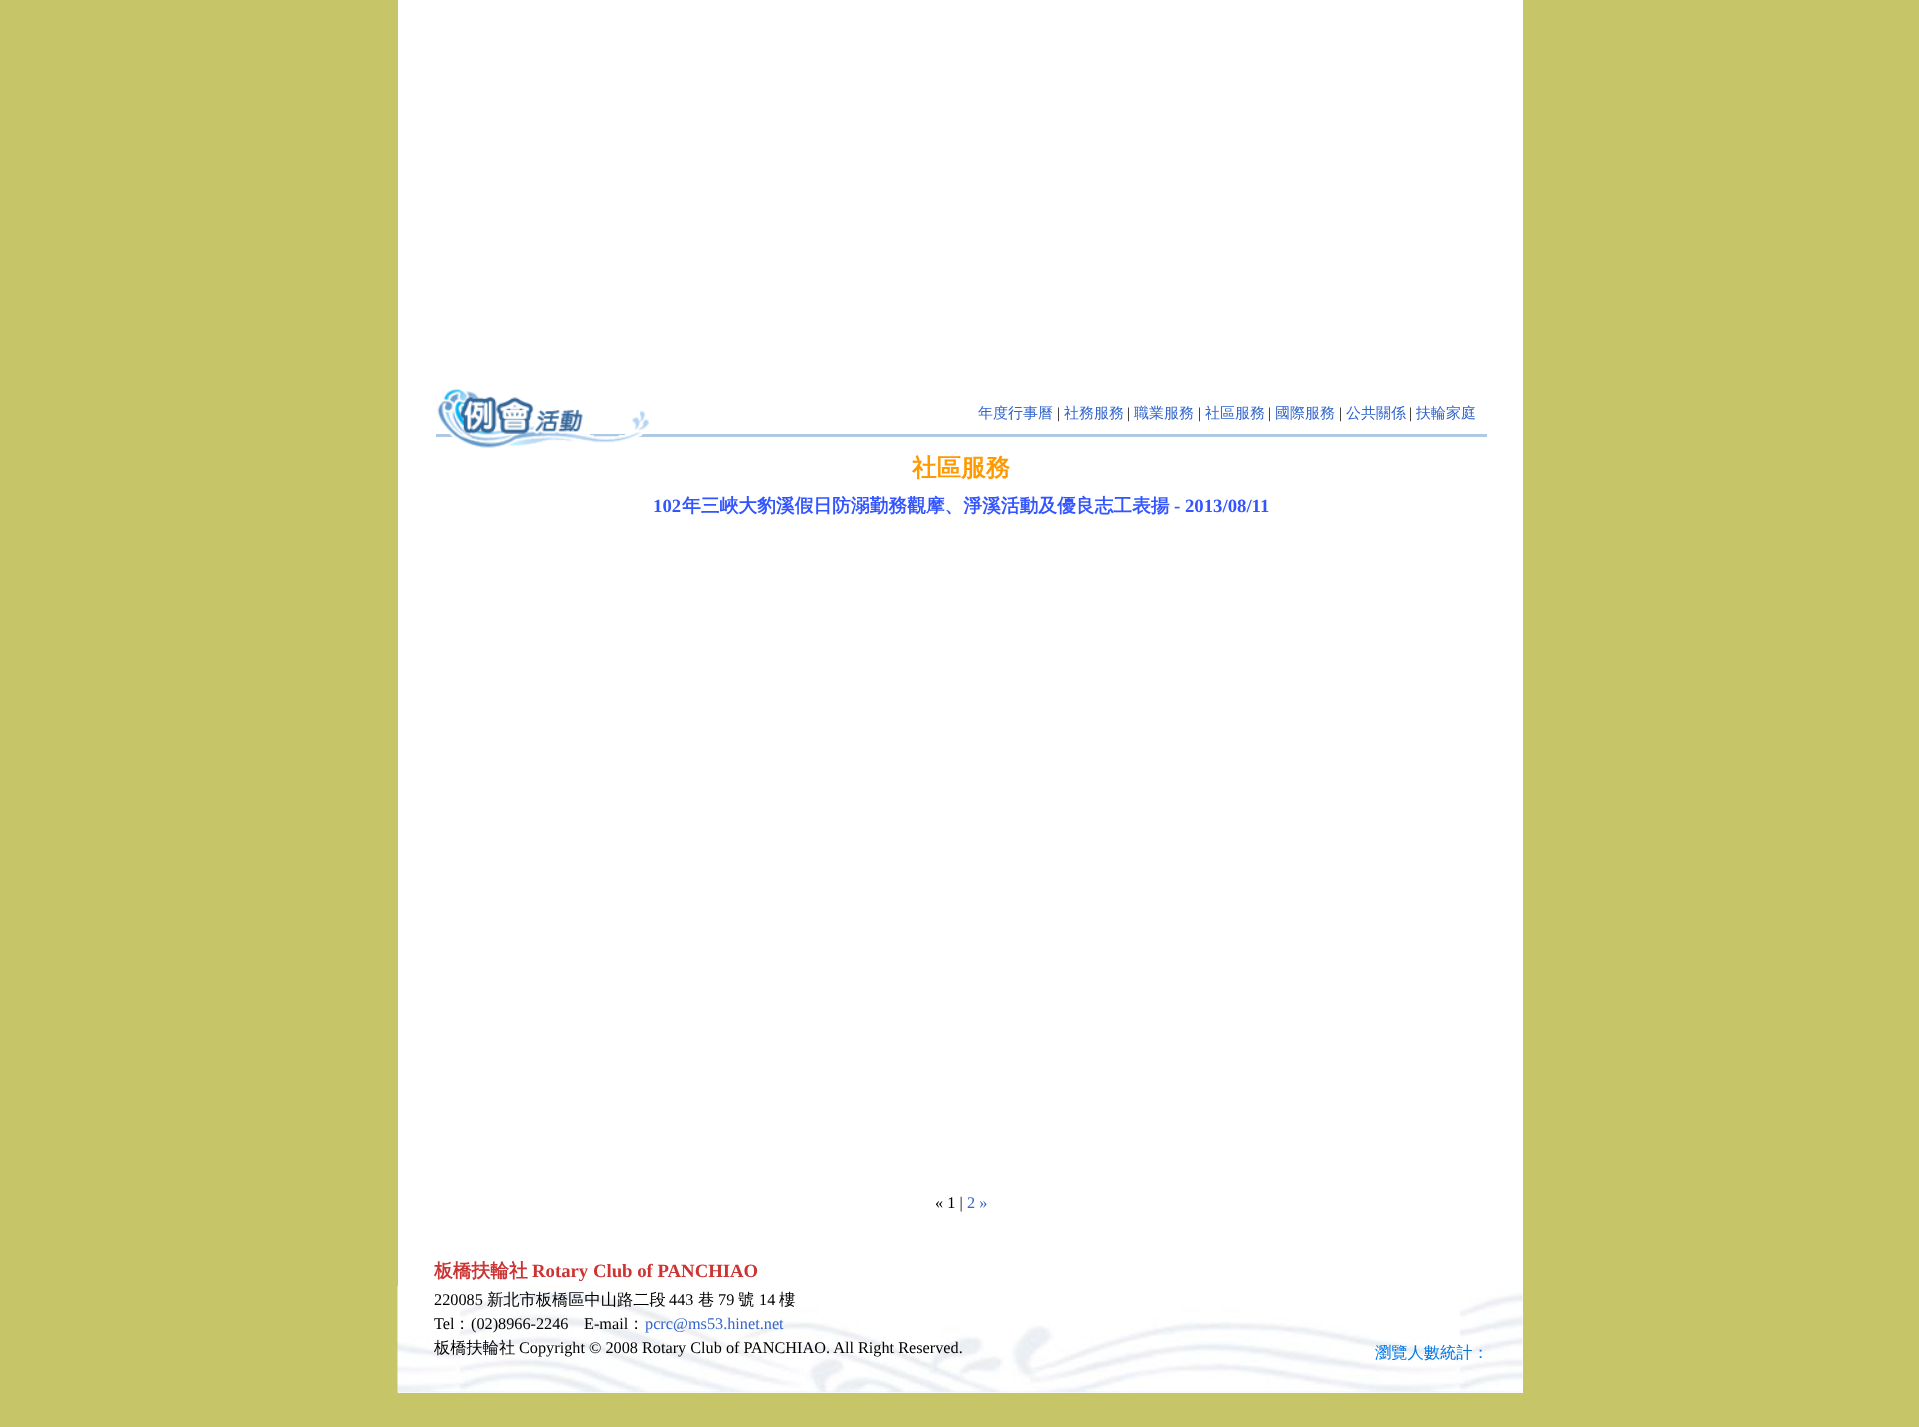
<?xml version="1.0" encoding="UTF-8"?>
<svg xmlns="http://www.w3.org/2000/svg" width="1919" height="1427">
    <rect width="100%" height="100%" fill="#C6C568"/>
    <rect x="398" y="0" width="1125" height="1393" fill="#FFFFFF"/>
    <image x="397" y="1286" width="1126" height="107" href="img_01.png"/>
    <rect x="436" y="434" width="1051" height="3" fill="#AEC9E4"/>
    <image x="437" y="388" width="212" height="60" href="img_02.png"/>
    <text x="978" y="418" font-family="WenQuanYi Zen Hei" font-size="15" font-weight="500" fill="#3366CC">年度行事曆</text>
    <text x="1057" y="418" font-family="Liberation Serif" font-size="15" fill="#000000">|</text>
    <text x="1064" y="418" font-family="WenQuanYi Zen Hei" font-size="15" font-weight="500" fill="#3366CC">社務服務</text>
    <text x="1127" y="418" font-family="Liberation Serif" font-size="15" fill="#000000">|</text>
    <text x="1134" y="418" font-family="WenQuanYi Zen Hei" font-size="15" font-weight="500" fill="#3366CC">職業服務</text>
    <text x="1198" y="418" font-family="Liberation Serif" font-size="15" fill="#000000">|</text>
    <text x="1205" y="418" font-family="WenQuanYi Zen Hei" font-size="15" font-weight="500" fill="#3366CC">社區服務</text>
    <text x="1268" y="418" font-family="Liberation Serif" font-size="15" fill="#000000">|</text>
    <text x="1275" y="418" font-family="WenQuanYi Zen Hei" font-size="15" font-weight="500" fill="#3366CC">國際服務</text>
    <text x="1339" y="418" font-family="Liberation Serif" font-size="15" fill="#000000">|</text>
    <text x="1346" y="418" font-family="WenQuanYi Zen Hei" font-size="15" font-weight="500" fill="#3366CC">公共關係</text>
    <text x="1409" y="418" font-family="Liberation Serif" font-size="15" fill="#000000">|</text>
    <text x="1416" y="418" font-family="WenQuanYi Zen Hei" font-size="15" font-weight="500" fill="#3366CC">扶輪家庭</text>
    <text x="912" y="476" font-family="WenQuanYi Zen Hei" font-size="24.5" font-weight="700" fill="#FF9900">社區服務</text>
    <text x="653" y="512" font-family="Liberation Serif" font-size="18.75" font-weight="700" fill="#3355FF">102</text>
    <text x="682" y="512" font-family="WenQuanYi Zen Hei" font-size="18.75" font-weight="700" fill="#3355FF">年三峽大豹溪假日防溺勤務觀摩、淨溪活動及優良志工表揚</text>
    <text x="1174" y="512" font-family="Liberation Serif" font-size="18.75" font-weight="700" fill="#3355FF">- 2013/08/11</text>
    <text x="935" y="1208" font-family="Liberation Serif" font-size="16.25" fill="#000000">« 1 |</text>
    <text x="967" y="1208" font-family="Liberation Serif" font-size="16.25" fill="#3366CC">2 »</text>
    <text x="434" y="1277" font-family="WenQuanYi Zen Hei" font-size="18.75" font-weight="700" fill="#CC3333">板橋扶輪社</text>
    <text x="532" y="1277" font-family="Liberation Serif" font-size="18.75" font-weight="700" fill="#CC3333">Rotary Club of PANCHIAO</text>
    <text x="434" y="1305" font-family="Liberation Serif" font-size="16.25" fill="#000000">220085</text>
    <text x="487" y="1305" font-family="WenQuanYi Zen Hei" font-size="16.25" font-weight="500" fill="#000000">新北市板橋區中山路二段</text>
    <text x="669" y="1305" font-family="Liberation Serif" font-size="16.25" fill="#000000">443</text>
    <text x="698" y="1305" font-family="WenQuanYi Zen Hei" font-size="16.25" font-weight="500" fill="#000000">巷</text>
    <text x="718" y="1305" font-family="Liberation Serif" font-size="16.25" fill="#000000">79</text>
    <text x="738" y="1305" font-family="WenQuanYi Zen Hei" font-size="16.25" font-weight="500" fill="#000000">號</text>
    <text x="759" y="1305" font-family="Liberation Serif" font-size="16.25" fill="#000000">14</text>
    <text x="779" y="1305" font-family="WenQuanYi Zen Hei" font-size="16.25" font-weight="500" fill="#000000">樓</text>
    <text x="434" y="1329" font-family="Liberation Serif" font-size="16.25" fill="#000000">Tel</text>
    <text x="454" y="1329" font-family="WenQuanYi Zen Hei" font-size="16.25" font-weight="500" fill="#000000">：</text>
    <text x="471" y="1329" font-family="Liberation Serif" font-size="16.25" fill="#000000">(02)8966-2246</text>
    <text x="584" y="1329" font-family="Liberation Serif" font-size="16.25" fill="#000000">E-mail</text>
    <text x="628" y="1329" font-family="WenQuanYi Zen Hei" font-size="16.25" font-weight="500" fill="#000000">：</text>
    <text x="645" y="1329" font-family="Liberation Serif" font-size="16.25" fill="#3366CC">pcrc@ms53.hinet.net</text>
    <text x="434" y="1353" font-family="WenQuanYi Zen Hei" font-size="16.25" font-weight="500" fill="#000000">板橋扶輪社</text>
    <text x="519" y="1353" font-family="Liberation Serif" font-size="16.25" fill="#000000">Copyright © 2008 Rotary Club of PANCHIAO. All Right Reserved.</text>
    <text x="1375" y="1358" font-family="WenQuanYi Zen Hei" font-size="16.25" font-weight="500" fill="#0076E4">瀏覽人數統計：</text>
</svg>
